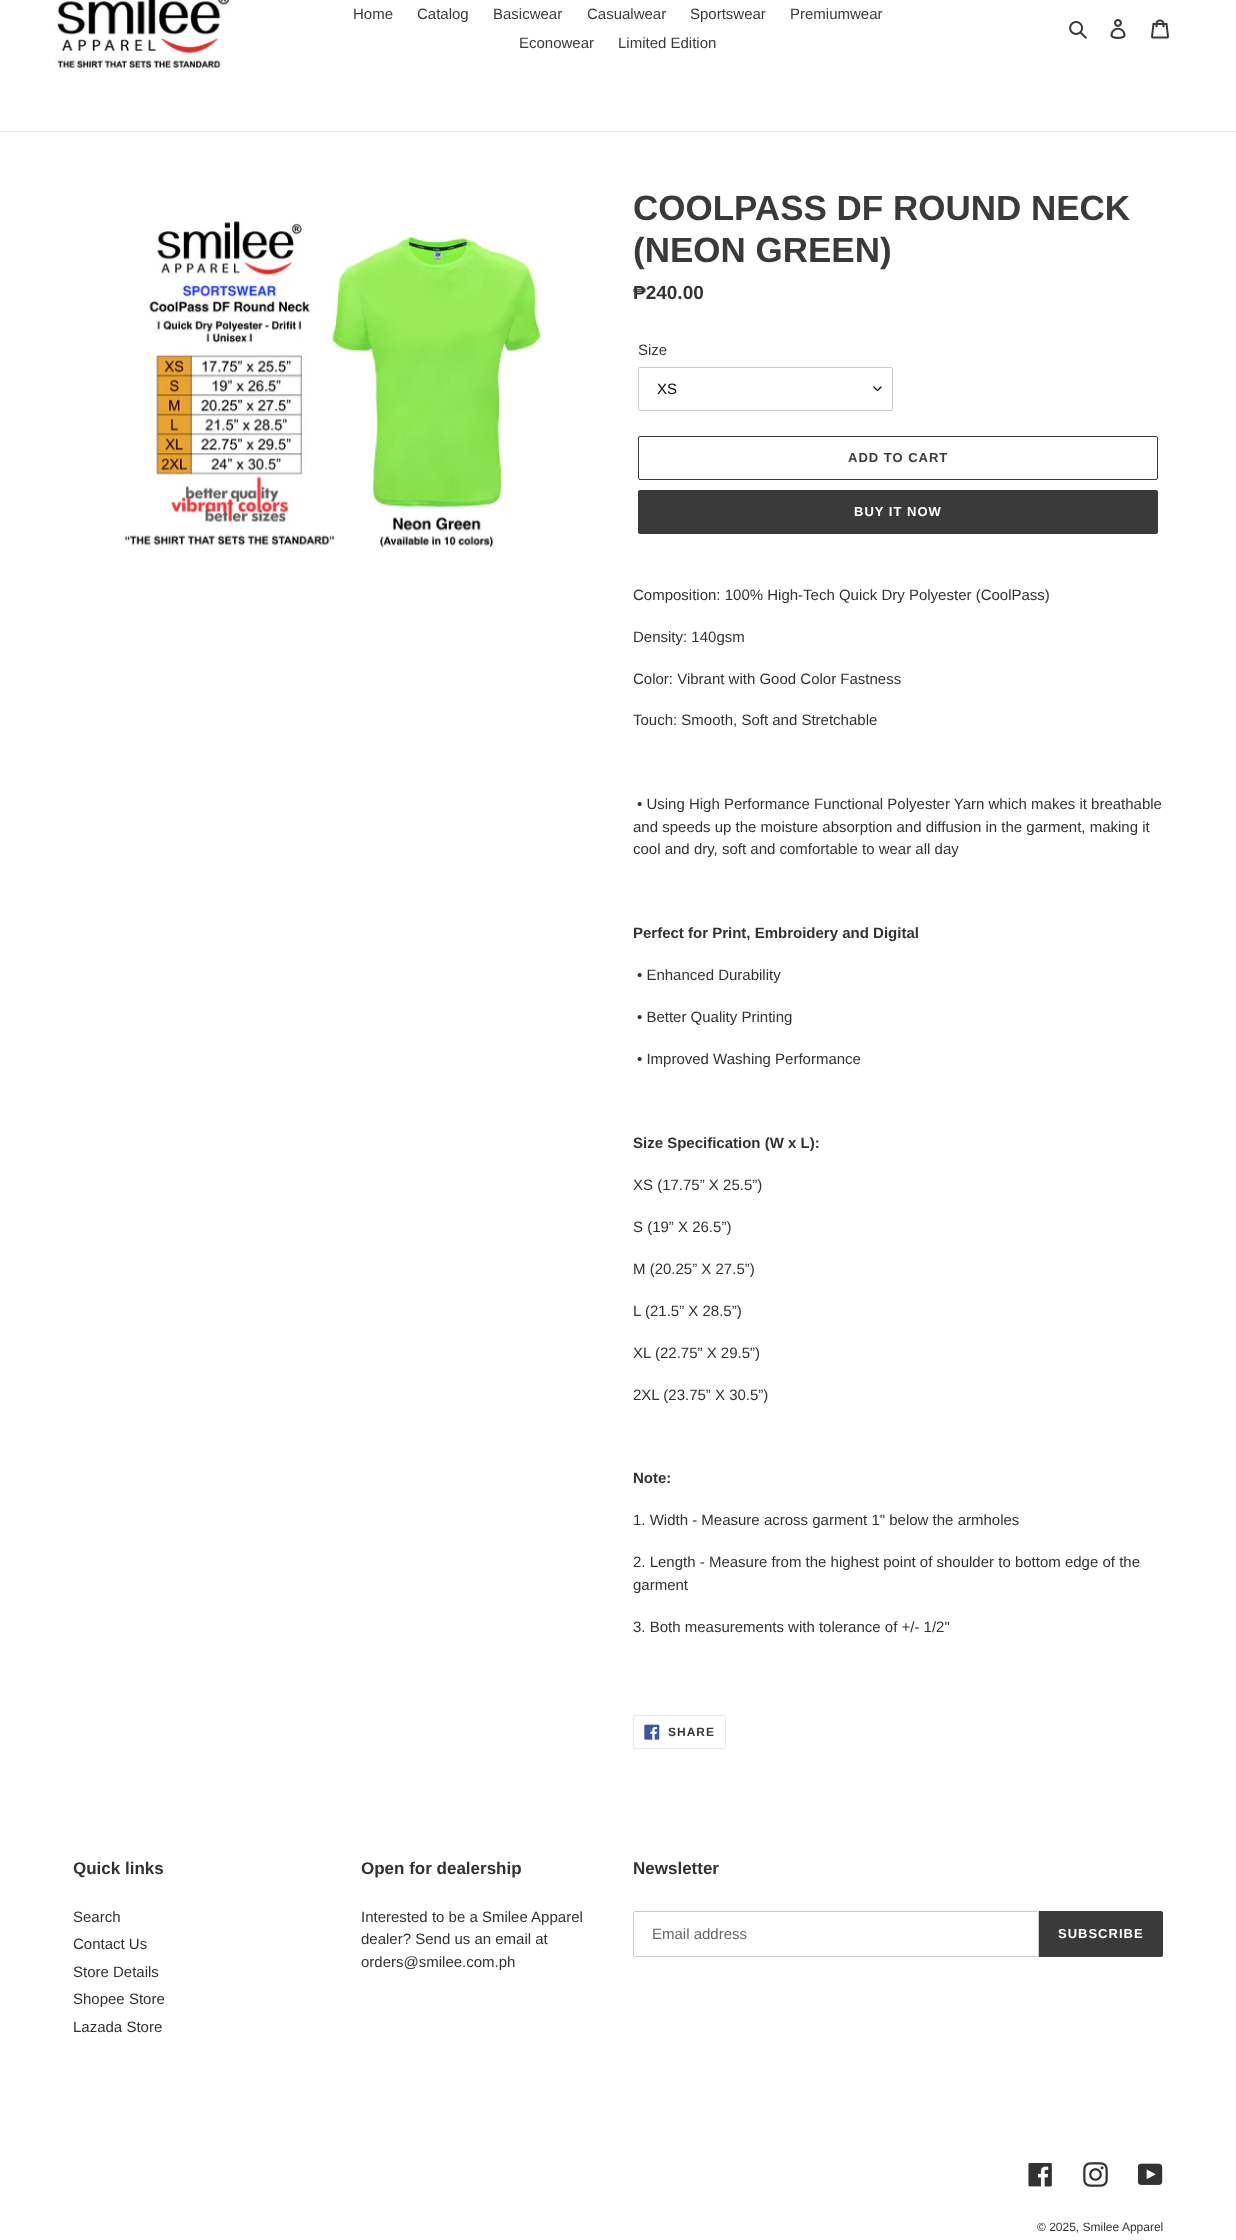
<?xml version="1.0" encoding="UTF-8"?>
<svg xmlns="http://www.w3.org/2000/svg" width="1236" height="2240">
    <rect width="100%" height="100%" fill="#FFFFFF"/>
    <rect x="0" y="131" width="1236" height="1" fill="#EBEBEB"/>
    <image x="55" y="0" width="175" height="69" href="img_01.png"/>
    <text x="353" y="19" font-family="Liberation Sans" font-size="15" fill="#3A3A3A">Home</text>
    <text x="417" y="19" font-family="Liberation Sans" font-size="15" fill="#3A3A3A">Catalog</text>
    <text x="493" y="19" font-family="Liberation Sans" font-size="15" fill="#3A3A3A">Basicwear</text>
    <text x="587" y="19" font-family="Liberation Sans" font-size="15" fill="#3A3A3A">Casualwear</text>
    <text x="690" y="19" font-family="Liberation Sans" font-size="15" fill="#3A3A3A">Sportswear</text>
    <text x="790" y="19" font-family="Liberation Sans" font-size="15" fill="#3A3A3A">Premiumwear</text>
    <text x="519" y="48" font-family="Liberation Sans" font-size="15" fill="#3A3A3A">Econowear</text>
    <text x="618" y="48" font-family="Liberation Sans" font-size="15" fill="#3A3A3A">Limited Edition</text>
    <image x="1069" y="21" width="18" height="18" href="img_02.png"/>
    <image x="1110" y="19" width="16" height="20" href="img_03.png"/>
    <image x="1151" y="19" width="18" height="20" href="img_04.png"/>
    <image x="125" y="219" width="419" height="329" href="img_05.png"/>
    <text font-family="Liberation Sans" font-size="35" font-weight="700" fill="#3A3A3A">
        <tspan x="633" y="220">COOLPASS DF ROUND NECK</tspan>
        <tspan x="633" y="262">(NEON GREEN)</tspan>
    </text>
    <text x="633" y="299" font-family="Liberation Sans" font-size="19" font-weight="700" fill="#333232">₱240.00</text>
    <text x="638" y="355" font-family="Liberation Sans" font-size="15" fill="#3A3A3A">Size</text>
    <image x="873" y="386" width="9" height="6" href="img_06.png"/>
    <rect x="638.5" y="367.5" width="254" height="43" rx="1.5" fill="none" stroke="#CCCCCC"/>
    <text x="657" y="394" font-family="Liberation Sans" font-size="15" fill="#000000">XS</text>
    <rect x="638.5" y="436.5" width="519" height="43" rx="1.5" fill="none" stroke="#3A3A3A"/>
    <text x="848" y="462" font-family="Liberation Sans" font-size="13" font-weight="700" letter-spacing="1" fill="#3A3A3A">ADD TO CART</text>
    <rect x="638" y="490" width="520" height="44" rx="2" fill="#3A3A3A"/>
    <text x="854" y="516" font-family="Liberation Sans" font-size="13" font-weight="700" letter-spacing="1" fill="#FFFFFF">BUY IT NOW</text>
    <text x="633" y="600" font-family="Liberation Sans" font-size="15" fill="#333232">Composition: 100% High-Tech Quick Dry Polyester (CoolPass)</text>
    <text x="633" y="642" font-family="Liberation Sans" font-size="15" fill="#333232">Density: 140gsm</text>
    <text x="633" y="684" font-family="Liberation Sans" font-size="15" fill="#333232">Color: Vibrant with Good Color Fastness</text>
    <text x="633" y="725" font-family="Liberation Sans" font-size="15" fill="#333232">Touch: Smooth, Soft and Stretchable</text>
    <text x="637" y="809" font-family="Liberation Sans" font-size="15" fill="#333232">• Using High Performance Functional Polyester Yarn which makes it breathable</text>
    <text font-family="Liberation Sans" font-size="15" fill="#333232">
        <tspan x="633" y="832">and speeds up the moisture absorption and diffusion in the garment, making it</tspan>
        <tspan x="633" y="854">cool and dry, soft and comfortable to wear all day</tspan>
    </text>
    <text x="633" y="938" font-family="Liberation Sans" font-size="15" font-weight="700" fill="#333232">Perfect for Print, Embroidery and Digital</text>
    <text x="637" y="980" font-family="Liberation Sans" font-size="15" fill="#333232">• Enhanced Durability</text>
    <text x="637" y="1022" font-family="Liberation Sans" font-size="15" fill="#333232">• Better Quality Printing</text>
    <text x="637" y="1064" font-family="Liberation Sans" font-size="15" fill="#333232">• Improved Washing Performance</text>
    <text x="633" y="1148" font-family="Liberation Sans" font-size="15" font-weight="700" fill="#333232">Size Specification (W x L):</text>
    <text x="633" y="1190" font-family="Liberation Sans" font-size="15" fill="#333232">XS (17.75” X 25.5”)</text>
    <text x="633" y="1232" font-family="Liberation Sans" font-size="15" fill="#333232">S (19” X 26.5”)</text>
    <text x="633" y="1274" font-family="Liberation Sans" font-size="15" fill="#333232">M (20.25” X 27.5”)</text>
    <text x="633" y="1316" font-family="Liberation Sans" font-size="15" fill="#333232">L (21.5” X 28.5”)</text>
    <text x="633" y="1358" font-family="Liberation Sans" font-size="15" fill="#333232">XL (22.75” X 29.5”)</text>
    <text x="633" y="1400" font-family="Liberation Sans" font-size="15" fill="#333232">2XL (23.75” X 30.5”)</text>
    <text x="633" y="1483" font-family="Liberation Sans" font-size="15" font-weight="700" fill="#333232">Note:</text>
    <text x="633" y="1525" font-family="Liberation Sans" font-size="15" fill="#333232">1. Width - Measure across garment 1" below the armholes</text>
    <text font-family="Liberation Sans" font-size="15" fill="#333232">
        <tspan x="633" y="1567">2. Length - Measure from the highest point of shoulder to bottom edge of the</tspan>
        <tspan x="633" y="1590">garment</tspan>
    </text>
    <text x="633" y="1632" font-family="Liberation Sans" font-size="15" fill="#333232">3. Both measurements with tolerance of +/- 1/2"</text>
    <rect x="633.5" y="1715.5" width="92" height="33" rx="1.5" fill="none" stroke="#EBEBEB"/>
    <image x="644" y="1724" width="16" height="16" href="img_07.png"/>
    <text x="668" y="1736" font-family="Liberation Sans" font-size="12" font-weight="700" letter-spacing="1" fill="#3A3A3A">SHARE</text>
    <text x="73" y="1874" font-family="Liberation Sans" font-size="17" font-weight="700" fill="#333232">Quick links</text>
    <text font-family="Liberation Sans" font-size="15" fill="#333232">
        <tspan x="73" y="1922">Search</tspan>
        <tspan x="73" y="1949">Contact Us</tspan>
        <tspan x="73" y="1977">Store Details</tspan>
        <tspan x="73" y="2004">Shopee Store</tspan>
        <tspan x="73" y="2032">Lazada Store</tspan>
    </text>
    <text x="361" y="1874" font-family="Liberation Sans" font-size="17" font-weight="700" fill="#333232">Open for dealership</text>
    <text font-family="Liberation Sans" font-size="15" fill="#333232">
        <tspan x="361" y="1922">Interested to be a Smilee Apparel</tspan>
        <tspan x="361" y="1944">dealer? Send us an email at</tspan>
        <tspan x="361" y="1967">orders@smilee.com.ph</tspan>
    </text>
    <text x="633" y="1874" font-family="Liberation Sans" font-size="17" font-weight="700" fill="#333232">Newsletter</text>
    <path d="M 635 1911.5 H 1038.5 V 1956.5 H 635 C 634 1956.5 633.5 1956 633.5 1955 V 1913 C 633.5 1912 634 1911.5 635 1911.5 Z" fill="none" stroke="#CCCCCC"/>
    <text x="652" y="1939" font-family="Liberation Sans" font-size="15" fill="#666666">Email address</text>
    <path d="M 1039 1911 H 1161 C 1162 1911 1163 1912 1163 1913 V 1955 C 1163 1956 1162 1957 1161 1957 H 1039 Z" fill="#3A3A3A"/>
    <text x="1058" y="1938" font-family="Liberation Sans" font-size="13" font-weight="700" letter-spacing="1" fill="#FFFFFF">SUBSCRIBE</text>
    <image x="1028" y="2163" width="24" height="24" href="img_08.png"/>
    <image x="1083" y="2162" width="25" height="25" href="img_09.png"/>
    <image x="1138" y="2163" width="25" height="22" href="img_10.png"/>
    <text x="1037" y="2231" font-family="Liberation Sans" font-size="12" fill="#333232">© 2025, Smilee Apparel</text>
</svg>
